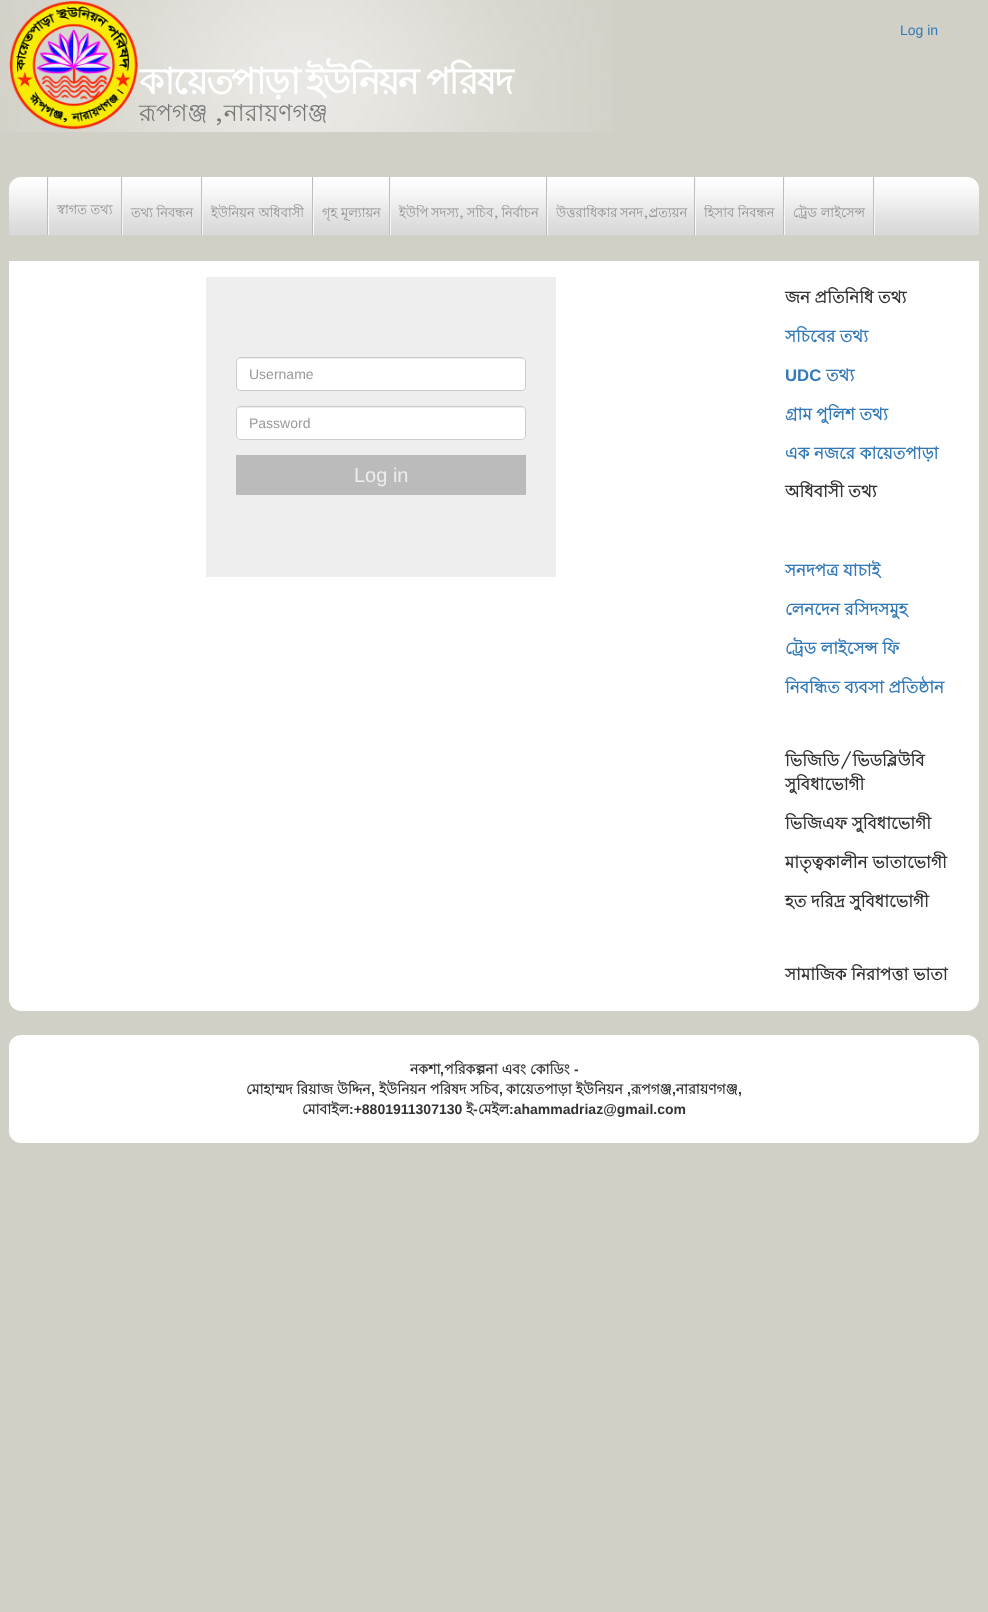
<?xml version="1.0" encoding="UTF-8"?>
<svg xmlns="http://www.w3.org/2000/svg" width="988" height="1612">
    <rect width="100%" height="100%" fill="#D1D0C6"/>
    <image x="0" y="0" width="612" height="132" href="img_01.png"/>
    <text x="900" y="35" font-family="Liberation Sans" font-size="14" fill="#337AB7">Log in</text>
    <image x="9" y="1" width="130" height="129" href="img_02.png"/>
    <text x="139" y="94" font-family="Lohit Bengali" font-size="36" font-weight="700" letter-spacing="-2" fill="#FFFFFF">কায়েতপাড়া</text>
    <text x="306" y="94" font-family="Lohit Bengali" font-size="36" font-weight="700" letter-spacing="-2" fill="#FFFFFF">ইউনিয়ন</text>
    <text x="426" y="94" font-family="Lohit Bengali" font-size="36" font-weight="700" letter-spacing="-2" fill="#FFFFFF">পরিষদ</text>
    <text x="139" y="121" font-family="Lohit Bengali" font-size="23.5" fill="#777777">রূপগঞ্জ ,নারায়ণগঞ্জ</text>
    <image x="9" y="177" width="970" height="58" href="img_03.png"/>
    <image x="47" y="177" width="2" height="58" href="img_04.png"/>
    <image x="121" y="177" width="2" height="58" href="img_04.png"/>
    <text x="57" y="214" font-family="Lohit Bengali" font-size="13" fill="#8E8E8E">স্বাগত তথ্য</text>
    <image x="201" y="177" width="2" height="58" href="img_04.png"/>
    <text x="131" y="217" font-family="Lohit Bengali" font-size="13" fill="#8E8E8E">তথ্য নিবন্ধন</text>
    <image x="312" y="177" width="2" height="58" href="img_04.png"/>
    <text x="211" y="217" font-family="Lohit Bengali" font-size="13" fill="#8E8E8E">ইউনিয়ন অধিবাসী</text>
    <image x="389" y="177" width="2" height="58" href="img_04.png"/>
    <text x="322" y="217" font-family="Lohit Bengali" font-size="13" fill="#8E8E8E">গৃহ মূল্যায়ন</text>
    <image x="546" y="177" width="2" height="58" href="img_04.png"/>
    <text x="399" y="217" word-spacing="-1" font-family="Lohit Bengali" font-size="13" fill="#8E8E8E">ইউপি সদস্য, সচিব, নির্বাচন</text>
    <image x="694" y="177" width="2" height="58" href="img_04.png"/>
    <text x="556" y="217" word-spacing="-1" font-family="Lohit Bengali" font-size="13" fill="#8E8E8E">উত্তরাধিকার সনদ,প্র্রত্যয়ন</text>
    <image x="783" y="177" width="2" height="58" href="img_04.png"/>
    <text x="704" y="217" font-family="Lohit Bengali" font-size="13" fill="#8E8E8E">হিসাব নিবন্ধন</text>
    <image x="873" y="177" width="2" height="58" href="img_04.png"/>
    <text x="793" y="217" font-family="Lohit Bengali" font-size="13" fill="#8E8E8E">ট্রেড লাইসেন্স</text>
    <path d="M 9 261 H 979 V 999 C 979 1005.5 973.5 1011 967 1011 H 21 C 14.5 1011 9 1005.5 9 999 Z" fill="#FFFFFF"/>
    <rect x="206" y="277" width="350" height="300" fill="#EEEEEE"/>
    <rect x="236" y="357" width="290" height="34" rx="4" fill="#FFFFFF"/>
    <path d="M 240 359 H 522 C 524 359 525 360 525 362 C 525 360 524 358 522 358 H 240 C 238 358 237 360 237 362 C 237 360 238 359 240 359 Z" fill="#ECECEC"/>
    <rect x="236.5" y="357.5" width="289" height="33" rx="3.5" fill="none" stroke="#CCCCCC"/>
    <text x="249" y="379" font-family="Liberation Sans" font-size="14" fill="#999999">Username</text>
    <rect x="236" y="406" width="290" height="34" rx="4" fill="#FFFFFF"/>
    <path d="M 240 408 H 522 C 524 408 525 409 525 411 C 525 409 524 407 522 407 H 240 C 238 407 237 409 237 411 C 237 409 238 408 240 408 Z" fill="#ECECEC"/>
    <rect x="236.5" y="406.5" width="289" height="33" rx="3.5" fill="none" stroke="#CCCCCC"/>
    <text x="249" y="428" font-family="Liberation Sans" font-size="14" fill="#999999">Password</text>
    <rect x="236" y="455" width="290" height="40" fill="#BBBBBB"/>
    <text x="354" y="482" font-family="Liberation Sans" font-size="20" fill="#EEEEEE">Log in</text>
    <text x="785" y="303" font-family="Lohit Bengali" font-size="16.75" font-weight="700" fill="#333333">জন প্রতিনিধি তথ্য</text>
    <text x="785" y="342" font-family="Lohit Bengali" font-size="16.75" font-weight="700" fill="#337AB7">সচিবের তথ্য</text>
    <text x="785" y="381" font-family="Liberation Sans" font-size="16.75" font-weight="700" fill="#337AB7">UDC</text>
    <text x="826" y="381" font-family="Lohit Bengali" font-size="16.75" font-weight="700" fill="#337AB7">তথ্য</text>
    <text x="785" y="420" font-family="Lohit Bengali" font-size="16.75" font-weight="700" fill="#337AB7">গ্রাম পুলিশ তথ্য</text>
    <text x="785" y="459" font-family="Lohit Bengali" font-size="16.75" font-weight="700" fill="#337AB7">এক নজরে কায়েতপাড়া</text>
    <text x="785" y="497" font-family="Lohit Bengali" font-size="16.75" font-weight="700" fill="#333333">অধিবাসী তথ্য</text>
    <text x="785" y="576" font-family="Lohit Bengali" font-size="16.75" font-weight="700" fill="#337AB7">সনদপত্র যাচাই</text>
    <text x="785" y="615" font-family="Lohit Bengali" font-size="16.75" font-weight="700" fill="#337AB7">লেনদেন রসিদসমুহ</text>
    <text x="785" y="654" font-family="Lohit Bengali" font-size="16.75" font-weight="700" fill="#337AB7">ট্রেড লাইসেন্স ফি</text>
    <text x="785" y="693" font-family="Lohit Bengali" font-size="16.75" font-weight="700" fill="#337AB7">নিবন্ধিত ব্যবসা প্রতিষ্ঠান</text>
    <text font-family="Lohit Bengali" font-size="16.75" font-weight="700" fill="#333333">
        <tspan x="785" y="766">ভিজিডি/ভিডব্লিউবি</tspan>
        <tspan x="785" y="790">সুবিধাভোগী</tspan>
    </text>
    <text x="785" y="829" font-family="Lohit Bengali" font-size="16.75" font-weight="700" fill="#333333">ভিজিএফ সুবিধাভোগী</text>
    <text x="785" y="868" font-family="Lohit Bengali" font-size="16.75" font-weight="700" fill="#333333">মাতৃত্বকালীন ভাতাভোগী</text>
    <text x="785" y="907" font-family="Lohit Bengali" font-size="16.75" font-weight="700" fill="#333333">হত দরিদ্র সুবিধাভোগী</text>
    <text x="785" y="980" font-family="Lohit Bengali" font-size="16.75" font-weight="700" fill="#333333">সামাজিক নিরাপত্তা ভাতা</text>
    <rect x="9" y="1035" width="970" height="108" rx="12" fill="#FFFFFF"/>
    <text x="410" y="1074" font-family="Lohit Bengali" font-size="14" font-weight="700" fill="#333333">নকশা পরিকল্পনা এবং কোডিং</text>
    <text x="574" y="1074" font-family="Liberation Sans" font-size="14" font-weight="700" fill="#333333">-</text>
    <text x="440" y="1074" font-family="Liberation Sans" font-size="14" font-weight="700" fill="#333333">,</text>
    <text x="246" y="1094" font-family="Lohit Bengali" font-size="14" font-weight="700" fill="#333333">মোহাম্মদ রিয়াজ উদ্দিন</text>
    <text x="371" y="1094" font-family="Liberation Sans" font-size="14" font-weight="700" fill="#333333">,</text>
    <text x="379" y="1094" font-family="Lohit Bengali" font-size="14" font-weight="700" fill="#333333">ইউনিয়ন পরিষদ সচিব</text>
    <text x="499" y="1094" font-family="Liberation Sans" font-size="14" font-weight="700" fill="#333333">,</text>
    <text x="506" y="1094" font-family="Lohit Bengali" font-size="14" font-weight="700" fill="#333333">কায়েতপাড়া ইউনিয়ন</text>
    <text x="627" y="1094" font-family="Liberation Sans" font-size="14" font-weight="700" fill="#333333">,</text>
    <text x="631" y="1094" font-family="Lohit Bengali" font-size="14" font-weight="700" fill="#333333">রূপগঞ্জ নারায়ণগঞ্জ</text>
    <text x="672" y="1094" font-family="Liberation Sans" font-size="14" font-weight="700" fill="#333333">,</text>
    <text x="738" y="1094" font-family="Liberation Sans" font-size="14" font-weight="700" fill="#333333">,</text>
    <text x="302" y="1114" font-family="Lohit Bengali" font-size="14" font-weight="700" fill="#333333">মোবাইল</text>
    <text x="349" y="1114" font-family="Liberation Sans" font-size="14" font-weight="700" fill="#333333">:+8801911307130</text>
    <text x="466" y="1114" font-family="Lohit Bengali" font-size="14" font-weight="700" fill="#333333">ই</text>
    <text x="473" y="1114" font-family="Liberation Sans" font-size="14" font-weight="700" fill="#333333">-</text>
    <text x="478" y="1114" font-family="Lohit Bengali" font-size="14" font-weight="700" fill="#333333">মেইল</text>
    <text x="509" y="1114" font-family="Liberation Sans" font-size="14" font-weight="700" fill="#333333">:ahammadriaz@gmail.com</text>
</svg>
